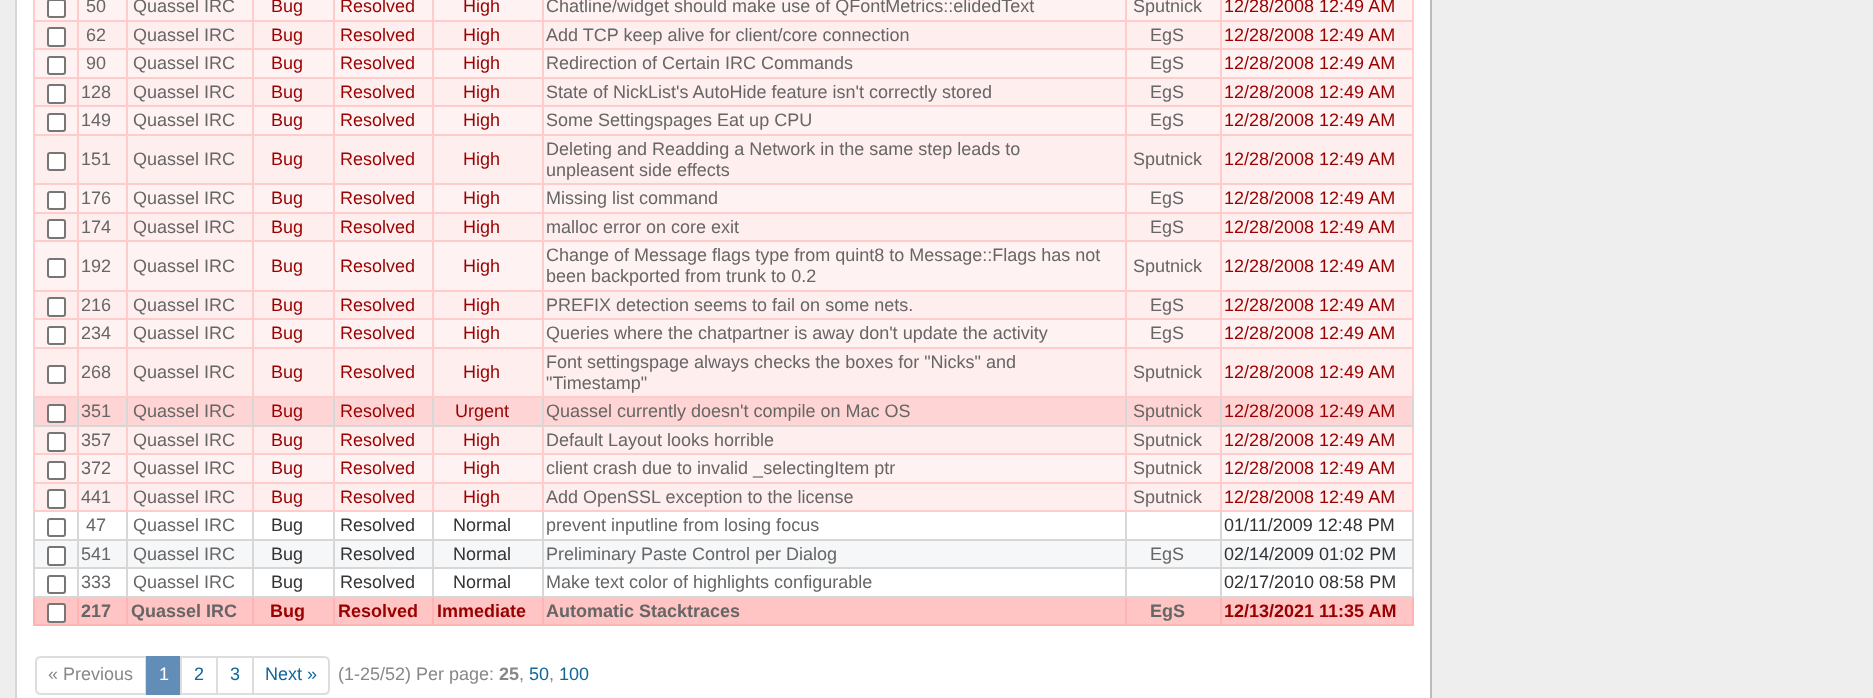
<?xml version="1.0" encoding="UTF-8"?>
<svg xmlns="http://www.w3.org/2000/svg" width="1873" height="698">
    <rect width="100%" height="100%" fill="#EEEEEE"/>
    <rect x="17" y="0" width="1413" height="698" fill="#FFFFFF"/>
    <rect x="1430" y="0" width="2" height="698" fill="#BBBBBB"/>
    <rect x="15" y="0" width="2" height="698" fill="#D7D7D7"/>
    <rect x="35" y="0" width="1377" height="20" fill="#FFF2F2"/>
    <rect x="48" y="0" width="17" height="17" rx="2" fill="#FFFFFF" stroke="#767676" stroke-width="2"/>
    <rect x="1220" y="20" width="193" height="2" fill="#FFCCCC"/>
    <rect x="35" y="22" width="1377" height="26" fill="#FFEEEE"/>
    <rect x="1220" y="48" width="193" height="2" fill="#FFCCCC"/>
    <rect x="35" y="50" width="1377" height="27" fill="#FFF2F2"/>
    <rect x="1220" y="77" width="193" height="2" fill="#FFCCCC"/>
    <rect x="35" y="79" width="1377" height="26" fill="#FFEEEE"/>
    <rect x="1220" y="105" width="193" height="2" fill="#FFCCCC"/>
    <rect x="35" y="107" width="1377" height="27" fill="#FFF2F2"/>
    <rect x="1220" y="134" width="193" height="2" fill="#FFCCCC"/>
    <rect x="35" y="136" width="1377" height="47" fill="#FFEEEE"/>
    <rect x="1220" y="183" width="193" height="2" fill="#FFCCCC"/>
    <rect x="35" y="185" width="1377" height="27" fill="#FFF2F2"/>
    <rect x="1220" y="212" width="193" height="2" fill="#FFCCCC"/>
    <rect x="35" y="214" width="1377" height="26" fill="#FFEEEE"/>
    <rect x="1220" y="240" width="193" height="2" fill="#FFCCCC"/>
    <rect x="35" y="242" width="1377" height="48" fill="#FFF2F2"/>
    <rect x="1220" y="290" width="193" height="2" fill="#FFCCCC"/>
    <rect x="35" y="292" width="1377" height="26" fill="#FFEEEE"/>
    <rect x="1220" y="318" width="193" height="2" fill="#FFCCCC"/>
    <rect x="35" y="320" width="1377" height="27" fill="#FFF2F2"/>
    <rect x="1220" y="347" width="193" height="2" fill="#FFCCCC"/>
    <rect x="35" y="349" width="1377" height="47" fill="#FFEEEE"/>
    <rect x="1220" y="453" width="193" height="2" fill="#FFCCCC"/>
    <rect x="1220" y="482" width="193" height="2" fill="#FFCCCC"/>
    <rect x="1220" y="539" width="193" height="2" fill="#D7D7D7"/>
    <rect x="1220" y="567" width="193" height="2" fill="#D7D7D7"/>
    <rect x="1412" y="596" width="2" height="30" fill="#FFB4B4"/>
    <rect x="1412" y="567" width="2" height="30" fill="#D7D7D7"/>
    <rect x="1412" y="510" width="2" height="59" fill="#D7D7D7"/>
    <rect x="1412" y="482" width="2" height="30" fill="#FFCCCC"/>
    <rect x="1412" y="425" width="2" height="58" fill="#FFCCCC"/>
    <rect x="1412" y="396" width="2" height="30" fill="#D7D7D7"/>
    <rect x="1412" y="347" width="2" height="51" fill="#FFCCCC"/>
    <rect x="35" y="398" width="1377" height="27" fill="#FFD4D4"/>
    <rect x="35" y="427" width="1377" height="26" fill="#FFEEEE"/>
    <rect x="35" y="455" width="1377" height="27" fill="#FFF2F2"/>
    <rect x="35" y="484" width="1377" height="26" fill="#FFEEEE"/>
    <rect x="35" y="541" width="1377" height="26" fill="#F6F7F8"/>
    <rect x="35" y="598" width="1377" height="26" fill="#FFC4C4"/>
    <rect x="1220" y="624" width="193" height="2" fill="#FFB4B4"/>
    <rect x="1220" y="596" width="2" height="30" fill="#FFB4B4"/>
    <rect x="1220" y="596" width="193" height="2" fill="#D7D7D7"/>
    <rect x="1220" y="567" width="2" height="30" fill="#D7D7D7"/>
    <rect x="1125" y="567" width="96" height="2" fill="#D7D7D7"/>
    <rect x="1220" y="539" width="2" height="30" fill="#D7D7D7"/>
    <rect x="1125" y="539" width="96" height="2" fill="#D7D7D7"/>
    <rect x="1220" y="510" width="2" height="30" fill="#D7D7D7"/>
    <rect x="1220" y="510" width="193" height="2" fill="#FFCCCC"/>
    <rect x="1220" y="482" width="2" height="30" fill="#FFCCCC"/>
    <rect x="1125" y="482" width="96" height="2" fill="#FFCCCC"/>
    <rect x="1220" y="453" width="2" height="30" fill="#FFCCCC"/>
    <rect x="1125" y="453" width="96" height="2" fill="#FFCCCC"/>
    <rect x="1220" y="425" width="2" height="30" fill="#FFCCCC"/>
    <rect x="1220" y="425" width="193" height="2" fill="#D7D7D7"/>
    <rect x="1220" y="396" width="2" height="30" fill="#D7D7D7"/>
    <rect x="1220" y="396" width="193" height="2" fill="#FFCCCC"/>
    <rect x="1220" y="347" width="2" height="51" fill="#FFCCCC"/>
    <rect x="1125" y="347" width="96" height="2" fill="#FFCCCC"/>
    <rect x="1220" y="318" width="2" height="30" fill="#FFCCCC"/>
    <rect x="1125" y="318" width="96" height="2" fill="#FFCCCC"/>
    <rect x="1220" y="290" width="2" height="30" fill="#FFCCCC"/>
    <rect x="1125" y="290" width="96" height="2" fill="#FFCCCC"/>
    <rect x="1220" y="240" width="2" height="51" fill="#FFCCCC"/>
    <rect x="1125" y="240" width="96" height="2" fill="#FFCCCC"/>
    <rect x="1220" y="212" width="2" height="30" fill="#FFCCCC"/>
    <rect x="1125" y="212" width="96" height="2" fill="#FFCCCC"/>
    <rect x="1220" y="183" width="2" height="30" fill="#FFCCCC"/>
    <rect x="1125" y="183" width="96" height="2" fill="#FFCCCC"/>
    <rect x="1220" y="134" width="2" height="51" fill="#FFCCCC"/>
    <rect x="1125" y="134" width="96" height="2" fill="#FFCCCC"/>
    <rect x="1220" y="105" width="2" height="30" fill="#FFCCCC"/>
    <rect x="1125" y="105" width="96" height="2" fill="#FFCCCC"/>
    <rect x="1220" y="77" width="2" height="30" fill="#FFCCCC"/>
    <rect x="1125" y="77" width="96" height="2" fill="#FFCCCC"/>
    <rect x="1220" y="48" width="2" height="30" fill="#FFCCCC"/>
    <rect x="1125" y="48" width="96" height="2" fill="#FFCCCC"/>
    <rect x="1220" y="20" width="2" height="30" fill="#FFCCCC"/>
    <rect x="1125" y="20" width="96" height="2" fill="#FFCCCC"/>
    <rect x="1125" y="624" width="96" height="2" fill="#FFB4B4"/>
    <rect x="1125" y="596" width="2" height="30" fill="#FFB4B4"/>
    <rect x="1125" y="596" width="96" height="2" fill="#D7D7D7"/>
    <rect x="1125" y="567" width="2" height="30" fill="#D7D7D7"/>
    <rect x="542" y="567" width="585" height="2" fill="#D7D7D7"/>
    <rect x="1125" y="539" width="2" height="30" fill="#D7D7D7"/>
    <rect x="542" y="539" width="585" height="2" fill="#D7D7D7"/>
    <rect x="1125" y="510" width="2" height="30" fill="#D7D7D7"/>
    <rect x="1125" y="510" width="96" height="2" fill="#FFCCCC"/>
    <rect x="1125" y="482" width="2" height="30" fill="#FFCCCC"/>
    <rect x="542" y="482" width="585" height="2" fill="#FFCCCC"/>
    <rect x="1125" y="453" width="2" height="30" fill="#FFCCCC"/>
    <rect x="542" y="453" width="585" height="2" fill="#FFCCCC"/>
    <rect x="1125" y="425" width="2" height="30" fill="#FFCCCC"/>
    <rect x="1125" y="425" width="96" height="2" fill="#D7D7D7"/>
    <rect x="1125" y="396" width="2" height="30" fill="#D7D7D7"/>
    <rect x="1125" y="396" width="96" height="2" fill="#FFCCCC"/>
    <rect x="1125" y="347" width="2" height="51" fill="#FFCCCC"/>
    <rect x="542" y="347" width="585" height="2" fill="#FFCCCC"/>
    <rect x="1125" y="318" width="2" height="30" fill="#FFCCCC"/>
    <rect x="542" y="318" width="585" height="2" fill="#FFCCCC"/>
    <rect x="1125" y="290" width="2" height="30" fill="#FFCCCC"/>
    <rect x="542" y="290" width="585" height="2" fill="#FFCCCC"/>
    <rect x="1125" y="240" width="2" height="51" fill="#FFCCCC"/>
    <rect x="542" y="240" width="585" height="2" fill="#FFCCCC"/>
    <rect x="1125" y="212" width="2" height="30" fill="#FFCCCC"/>
    <rect x="542" y="212" width="585" height="2" fill="#FFCCCC"/>
    <rect x="1125" y="183" width="2" height="30" fill="#FFCCCC"/>
    <rect x="542" y="183" width="585" height="2" fill="#FFCCCC"/>
    <rect x="1125" y="134" width="2" height="51" fill="#FFCCCC"/>
    <rect x="542" y="134" width="585" height="2" fill="#FFCCCC"/>
    <rect x="1125" y="105" width="2" height="30" fill="#FFCCCC"/>
    <rect x="542" y="105" width="585" height="2" fill="#FFCCCC"/>
    <rect x="1125" y="77" width="2" height="30" fill="#FFCCCC"/>
    <rect x="542" y="77" width="585" height="2" fill="#FFCCCC"/>
    <rect x="1125" y="48" width="2" height="30" fill="#FFCCCC"/>
    <rect x="542" y="48" width="585" height="2" fill="#FFCCCC"/>
    <rect x="1125" y="20" width="2" height="30" fill="#FFCCCC"/>
    <rect x="542" y="20" width="585" height="2" fill="#FFCCCC"/>
    <rect x="542" y="624" width="585" height="2" fill="#FFB4B4"/>
    <rect x="542" y="596" width="2" height="30" fill="#FFB4B4"/>
    <rect x="542" y="596" width="585" height="2" fill="#D7D7D7"/>
    <rect x="542" y="567" width="2" height="30" fill="#D7D7D7"/>
    <rect x="432" y="567" width="111" height="2" fill="#D7D7D7"/>
    <rect x="542" y="539" width="2" height="30" fill="#D7D7D7"/>
    <rect x="432" y="539" width="111" height="2" fill="#D7D7D7"/>
    <rect x="542" y="510" width="2" height="30" fill="#D7D7D7"/>
    <rect x="542" y="510" width="585" height="2" fill="#FFCCCC"/>
    <rect x="542" y="482" width="2" height="30" fill="#FFCCCC"/>
    <rect x="432" y="482" width="111" height="2" fill="#FFCCCC"/>
    <rect x="542" y="453" width="2" height="30" fill="#FFCCCC"/>
    <rect x="432" y="453" width="111" height="2" fill="#FFCCCC"/>
    <rect x="542" y="425" width="2" height="30" fill="#FFCCCC"/>
    <rect x="542" y="425" width="585" height="2" fill="#D7D7D7"/>
    <rect x="542" y="396" width="2" height="30" fill="#D7D7D7"/>
    <rect x="542" y="396" width="585" height="2" fill="#FFCCCC"/>
    <rect x="542" y="347" width="2" height="51" fill="#FFCCCC"/>
    <rect x="432" y="347" width="111" height="2" fill="#FFCCCC"/>
    <rect x="542" y="318" width="2" height="30" fill="#FFCCCC"/>
    <rect x="432" y="318" width="111" height="2" fill="#FFCCCC"/>
    <rect x="542" y="290" width="2" height="30" fill="#FFCCCC"/>
    <rect x="432" y="290" width="111" height="2" fill="#FFCCCC"/>
    <rect x="542" y="240" width="2" height="51" fill="#FFCCCC"/>
    <rect x="432" y="240" width="111" height="2" fill="#FFCCCC"/>
    <rect x="542" y="212" width="2" height="30" fill="#FFCCCC"/>
    <rect x="432" y="212" width="111" height="2" fill="#FFCCCC"/>
    <rect x="542" y="183" width="2" height="30" fill="#FFCCCC"/>
    <rect x="432" y="183" width="111" height="2" fill="#FFCCCC"/>
    <rect x="542" y="134" width="2" height="51" fill="#FFCCCC"/>
    <rect x="432" y="134" width="111" height="2" fill="#FFCCCC"/>
    <rect x="542" y="105" width="2" height="30" fill="#FFCCCC"/>
    <rect x="432" y="105" width="111" height="2" fill="#FFCCCC"/>
    <rect x="542" y="77" width="2" height="30" fill="#FFCCCC"/>
    <rect x="432" y="77" width="111" height="2" fill="#FFCCCC"/>
    <rect x="542" y="48" width="2" height="30" fill="#FFCCCC"/>
    <rect x="432" y="48" width="111" height="2" fill="#FFCCCC"/>
    <rect x="542" y="20" width="2" height="30" fill="#FFCCCC"/>
    <rect x="432" y="20" width="111" height="2" fill="#FFCCCC"/>
    <rect x="432" y="624" width="111" height="2" fill="#FFB4B4"/>
    <rect x="432" y="596" width="2" height="30" fill="#FFB4B4"/>
    <rect x="432" y="596" width="111" height="2" fill="#D7D7D7"/>
    <rect x="432" y="567" width="2" height="30" fill="#D7D7D7"/>
    <rect x="333" y="567" width="101" height="2" fill="#D7D7D7"/>
    <rect x="432" y="539" width="2" height="30" fill="#D7D7D7"/>
    <rect x="333" y="539" width="101" height="2" fill="#D7D7D7"/>
    <rect x="432" y="510" width="2" height="30" fill="#D7D7D7"/>
    <rect x="432" y="510" width="111" height="2" fill="#FFCCCC"/>
    <rect x="432" y="482" width="2" height="30" fill="#FFCCCC"/>
    <rect x="333" y="482" width="101" height="2" fill="#FFCCCC"/>
    <rect x="432" y="453" width="2" height="30" fill="#FFCCCC"/>
    <rect x="333" y="453" width="101" height="2" fill="#FFCCCC"/>
    <rect x="432" y="425" width="2" height="30" fill="#FFCCCC"/>
    <rect x="432" y="425" width="111" height="2" fill="#D7D7D7"/>
    <rect x="432" y="396" width="2" height="30" fill="#D7D7D7"/>
    <rect x="432" y="396" width="111" height="2" fill="#FFCCCC"/>
    <rect x="432" y="347" width="2" height="51" fill="#FFCCCC"/>
    <rect x="333" y="347" width="101" height="2" fill="#FFCCCC"/>
    <rect x="432" y="318" width="2" height="30" fill="#FFCCCC"/>
    <rect x="333" y="318" width="101" height="2" fill="#FFCCCC"/>
    <rect x="432" y="290" width="2" height="30" fill="#FFCCCC"/>
    <rect x="333" y="290" width="101" height="2" fill="#FFCCCC"/>
    <rect x="432" y="240" width="2" height="51" fill="#FFCCCC"/>
    <rect x="333" y="240" width="101" height="2" fill="#FFCCCC"/>
    <rect x="432" y="212" width="2" height="30" fill="#FFCCCC"/>
    <rect x="333" y="212" width="101" height="2" fill="#FFCCCC"/>
    <rect x="432" y="183" width="2" height="30" fill="#FFCCCC"/>
    <rect x="333" y="183" width="101" height="2" fill="#FFCCCC"/>
    <rect x="432" y="134" width="2" height="51" fill="#FFCCCC"/>
    <rect x="333" y="134" width="101" height="2" fill="#FFCCCC"/>
    <rect x="432" y="105" width="2" height="30" fill="#FFCCCC"/>
    <rect x="333" y="105" width="101" height="2" fill="#FFCCCC"/>
    <rect x="432" y="77" width="2" height="30" fill="#FFCCCC"/>
    <rect x="333" y="77" width="101" height="2" fill="#FFCCCC"/>
    <rect x="432" y="48" width="2" height="30" fill="#FFCCCC"/>
    <rect x="333" y="48" width="101" height="2" fill="#FFCCCC"/>
    <rect x="432" y="20" width="2" height="30" fill="#FFCCCC"/>
    <rect x="333" y="20" width="101" height="2" fill="#FFCCCC"/>
    <rect x="333" y="624" width="101" height="2" fill="#FFB4B4"/>
    <rect x="333" y="596" width="2" height="30" fill="#FFB4B4"/>
    <rect x="333" y="596" width="101" height="2" fill="#D7D7D7"/>
    <rect x="333" y="567" width="2" height="30" fill="#D7D7D7"/>
    <rect x="252" y="567" width="83" height="2" fill="#D7D7D7"/>
    <rect x="333" y="539" width="2" height="30" fill="#D7D7D7"/>
    <rect x="252" y="539" width="83" height="2" fill="#D7D7D7"/>
    <rect x="333" y="510" width="2" height="30" fill="#D7D7D7"/>
    <rect x="333" y="510" width="101" height="2" fill="#FFCCCC"/>
    <rect x="333" y="482" width="2" height="30" fill="#FFCCCC"/>
    <rect x="252" y="482" width="83" height="2" fill="#FFCCCC"/>
    <rect x="333" y="453" width="2" height="30" fill="#FFCCCC"/>
    <rect x="252" y="453" width="83" height="2" fill="#FFCCCC"/>
    <rect x="333" y="425" width="2" height="30" fill="#FFCCCC"/>
    <rect x="333" y="425" width="101" height="2" fill="#D7D7D7"/>
    <rect x="333" y="396" width="2" height="30" fill="#D7D7D7"/>
    <rect x="333" y="396" width="101" height="2" fill="#FFCCCC"/>
    <rect x="333" y="347" width="2" height="51" fill="#FFCCCC"/>
    <rect x="252" y="347" width="83" height="2" fill="#FFCCCC"/>
    <rect x="333" y="318" width="2" height="30" fill="#FFCCCC"/>
    <rect x="252" y="318" width="83" height="2" fill="#FFCCCC"/>
    <rect x="333" y="290" width="2" height="30" fill="#FFCCCC"/>
    <rect x="252" y="290" width="83" height="2" fill="#FFCCCC"/>
    <rect x="333" y="240" width="2" height="51" fill="#FFCCCC"/>
    <rect x="252" y="240" width="83" height="2" fill="#FFCCCC"/>
    <rect x="333" y="212" width="2" height="30" fill="#FFCCCC"/>
    <rect x="252" y="212" width="83" height="2" fill="#FFCCCC"/>
    <rect x="333" y="183" width="2" height="30" fill="#FFCCCC"/>
    <rect x="252" y="183" width="83" height="2" fill="#FFCCCC"/>
    <rect x="333" y="134" width="2" height="51" fill="#FFCCCC"/>
    <rect x="252" y="134" width="83" height="2" fill="#FFCCCC"/>
    <rect x="333" y="105" width="2" height="30" fill="#FFCCCC"/>
    <rect x="252" y="105" width="83" height="2" fill="#FFCCCC"/>
    <rect x="333" y="77" width="2" height="30" fill="#FFCCCC"/>
    <rect x="252" y="77" width="83" height="2" fill="#FFCCCC"/>
    <rect x="333" y="48" width="2" height="30" fill="#FFCCCC"/>
    <rect x="252" y="48" width="83" height="2" fill="#FFCCCC"/>
    <rect x="333" y="20" width="2" height="30" fill="#FFCCCC"/>
    <rect x="252" y="20" width="83" height="2" fill="#FFCCCC"/>
    <rect x="252" y="624" width="83" height="2" fill="#FFB4B4"/>
    <rect x="252" y="596" width="2" height="30" fill="#FFB4B4"/>
    <rect x="252" y="596" width="83" height="2" fill="#D7D7D7"/>
    <rect x="252" y="567" width="2" height="30" fill="#D7D7D7"/>
    <rect x="126" y="567" width="128" height="2" fill="#D7D7D7"/>
    <rect x="252" y="539" width="2" height="30" fill="#D7D7D7"/>
    <rect x="126" y="539" width="128" height="2" fill="#D7D7D7"/>
    <rect x="252" y="510" width="2" height="30" fill="#D7D7D7"/>
    <rect x="252" y="510" width="83" height="2" fill="#FFCCCC"/>
    <rect x="252" y="482" width="2" height="30" fill="#FFCCCC"/>
    <rect x="126" y="482" width="128" height="2" fill="#FFCCCC"/>
    <rect x="252" y="453" width="2" height="30" fill="#FFCCCC"/>
    <rect x="126" y="453" width="128" height="2" fill="#FFCCCC"/>
    <rect x="252" y="425" width="2" height="30" fill="#FFCCCC"/>
    <rect x="252" y="425" width="83" height="2" fill="#D7D7D7"/>
    <rect x="252" y="396" width="2" height="30" fill="#D7D7D7"/>
    <rect x="252" y="396" width="83" height="2" fill="#FFCCCC"/>
    <rect x="252" y="347" width="2" height="51" fill="#FFCCCC"/>
    <rect x="126" y="347" width="128" height="2" fill="#FFCCCC"/>
    <rect x="252" y="318" width="2" height="30" fill="#FFCCCC"/>
    <rect x="126" y="318" width="128" height="2" fill="#FFCCCC"/>
    <rect x="252" y="290" width="2" height="30" fill="#FFCCCC"/>
    <rect x="126" y="290" width="128" height="2" fill="#FFCCCC"/>
    <rect x="252" y="240" width="2" height="51" fill="#FFCCCC"/>
    <rect x="126" y="240" width="128" height="2" fill="#FFCCCC"/>
    <rect x="252" y="212" width="2" height="30" fill="#FFCCCC"/>
    <rect x="126" y="212" width="128" height="2" fill="#FFCCCC"/>
    <rect x="252" y="183" width="2" height="30" fill="#FFCCCC"/>
    <rect x="126" y="183" width="128" height="2" fill="#FFCCCC"/>
    <rect x="252" y="134" width="2" height="51" fill="#FFCCCC"/>
    <rect x="126" y="134" width="128" height="2" fill="#FFCCCC"/>
    <rect x="252" y="105" width="2" height="30" fill="#FFCCCC"/>
    <rect x="126" y="105" width="128" height="2" fill="#FFCCCC"/>
    <rect x="252" y="77" width="2" height="30" fill="#FFCCCC"/>
    <rect x="126" y="77" width="128" height="2" fill="#FFCCCC"/>
    <rect x="252" y="48" width="2" height="30" fill="#FFCCCC"/>
    <rect x="126" y="48" width="128" height="2" fill="#FFCCCC"/>
    <rect x="252" y="20" width="2" height="30" fill="#FFCCCC"/>
    <rect x="126" y="20" width="128" height="2" fill="#FFCCCC"/>
    <rect x="126" y="624" width="128" height="2" fill="#FFB4B4"/>
    <rect x="126" y="596" width="2" height="30" fill="#FFB4B4"/>
    <rect x="126" y="596" width="128" height="2" fill="#D7D7D7"/>
    <rect x="126" y="567" width="2" height="30" fill="#D7D7D7"/>
    <rect x="77" y="567" width="51" height="2" fill="#D7D7D7"/>
    <rect x="126" y="539" width="2" height="30" fill="#D7D7D7"/>
    <rect x="77" y="539" width="51" height="2" fill="#D7D7D7"/>
    <rect x="126" y="510" width="2" height="30" fill="#D7D7D7"/>
    <rect x="126" y="510" width="128" height="2" fill="#FFCCCC"/>
    <rect x="126" y="482" width="2" height="30" fill="#FFCCCC"/>
    <rect x="77" y="482" width="51" height="2" fill="#FFCCCC"/>
    <rect x="126" y="453" width="2" height="30" fill="#FFCCCC"/>
    <rect x="77" y="453" width="51" height="2" fill="#FFCCCC"/>
    <rect x="126" y="425" width="2" height="30" fill="#FFCCCC"/>
    <rect x="126" y="425" width="128" height="2" fill="#D7D7D7"/>
    <rect x="126" y="396" width="2" height="30" fill="#D7D7D7"/>
    <rect x="126" y="396" width="128" height="2" fill="#FFCCCC"/>
    <rect x="126" y="347" width="2" height="51" fill="#FFCCCC"/>
    <rect x="77" y="347" width="51" height="2" fill="#FFCCCC"/>
    <rect x="126" y="318" width="2" height="30" fill="#FFCCCC"/>
    <rect x="77" y="318" width="51" height="2" fill="#FFCCCC"/>
    <rect x="126" y="290" width="2" height="30" fill="#FFCCCC"/>
    <rect x="77" y="290" width="51" height="2" fill="#FFCCCC"/>
    <rect x="126" y="240" width="2" height="51" fill="#FFCCCC"/>
    <rect x="77" y="240" width="51" height="2" fill="#FFCCCC"/>
    <rect x="126" y="212" width="2" height="30" fill="#FFCCCC"/>
    <rect x="77" y="212" width="51" height="2" fill="#FFCCCC"/>
    <rect x="126" y="183" width="2" height="30" fill="#FFCCCC"/>
    <rect x="77" y="183" width="51" height="2" fill="#FFCCCC"/>
    <rect x="126" y="134" width="2" height="51" fill="#FFCCCC"/>
    <rect x="77" y="134" width="51" height="2" fill="#FFCCCC"/>
    <rect x="126" y="105" width="2" height="30" fill="#FFCCCC"/>
    <rect x="77" y="105" width="51" height="2" fill="#FFCCCC"/>
    <rect x="126" y="77" width="2" height="30" fill="#FFCCCC"/>
    <rect x="77" y="77" width="51" height="2" fill="#FFCCCC"/>
    <rect x="126" y="48" width="2" height="30" fill="#FFCCCC"/>
    <rect x="77" y="48" width="51" height="2" fill="#FFCCCC"/>
    <rect x="126" y="20" width="2" height="30" fill="#FFCCCC"/>
    <rect x="77" y="20" width="51" height="2" fill="#FFCCCC"/>
    <rect x="77" y="624" width="51" height="2" fill="#FFB4B4"/>
    <rect x="77" y="596" width="2" height="30" fill="#FFB4B4"/>
    <rect x="77" y="596" width="51" height="2" fill="#D7D7D7"/>
    <rect x="77" y="567" width="2" height="30" fill="#D7D7D7"/>
    <rect x="33" y="567" width="45" height="2" fill="#D7D7D7"/>
    <rect x="77" y="539" width="2" height="30" fill="#D7D7D7"/>
    <rect x="33" y="539" width="45" height="2" fill="#D7D7D7"/>
    <rect x="77" y="510" width="2" height="30" fill="#D7D7D7"/>
    <rect x="77" y="510" width="51" height="2" fill="#FFCCCC"/>
    <rect x="77" y="482" width="2" height="30" fill="#FFCCCC"/>
    <rect x="33" y="482" width="45" height="2" fill="#FFCCCC"/>
    <rect x="77" y="453" width="2" height="30" fill="#FFCCCC"/>
    <rect x="33" y="453" width="45" height="2" fill="#FFCCCC"/>
    <rect x="77" y="425" width="2" height="30" fill="#FFCCCC"/>
    <rect x="77" y="425" width="51" height="2" fill="#D7D7D7"/>
    <rect x="77" y="396" width="2" height="30" fill="#D7D7D7"/>
    <rect x="77" y="396" width="51" height="2" fill="#FFCCCC"/>
    <rect x="77" y="347" width="2" height="51" fill="#FFCCCC"/>
    <rect x="33" y="347" width="45" height="2" fill="#FFCCCC"/>
    <rect x="77" y="318" width="2" height="30" fill="#FFCCCC"/>
    <rect x="33" y="318" width="45" height="2" fill="#FFCCCC"/>
    <rect x="77" y="290" width="2" height="30" fill="#FFCCCC"/>
    <rect x="33" y="290" width="45" height="2" fill="#FFCCCC"/>
    <rect x="77" y="240" width="2" height="51" fill="#FFCCCC"/>
    <rect x="33" y="240" width="45" height="2" fill="#FFCCCC"/>
    <rect x="77" y="212" width="2" height="30" fill="#FFCCCC"/>
    <rect x="33" y="212" width="45" height="2" fill="#FFCCCC"/>
    <rect x="77" y="183" width="2" height="30" fill="#FFCCCC"/>
    <rect x="33" y="183" width="45" height="2" fill="#FFCCCC"/>
    <rect x="77" y="134" width="2" height="51" fill="#FFCCCC"/>
    <rect x="33" y="134" width="45" height="2" fill="#FFCCCC"/>
    <rect x="77" y="105" width="2" height="30" fill="#FFCCCC"/>
    <rect x="33" y="105" width="45" height="2" fill="#FFCCCC"/>
    <rect x="77" y="77" width="2" height="30" fill="#FFCCCC"/>
    <rect x="33" y="77" width="45" height="2" fill="#FFCCCC"/>
    <rect x="77" y="48" width="2" height="30" fill="#FFCCCC"/>
    <rect x="33" y="48" width="45" height="2" fill="#FFCCCC"/>
    <rect x="77" y="20" width="2" height="30" fill="#FFCCCC"/>
    <rect x="33" y="20" width="45" height="2" fill="#FFCCCC"/>
    <rect x="77" y="0" width="2" height="21" fill="#FFCCCC"/>
    <text x="86" y="12" font-family="Liberation Sans" font-size="18" fill="#666666">50</text>
    <rect x="126" y="0" width="2" height="21" fill="#FFCCCC"/>
    <text x="133" y="12" font-family="Liberation Sans" font-size="18" fill="#666666">Quassel IRC</text>
    <rect x="252" y="0" width="2" height="21" fill="#FFCCCC"/>
    <text x="271" y="12" font-family="Liberation Sans" font-size="18" fill="#990000">Bug</text>
    <rect x="333" y="0" width="2" height="21" fill="#FFCCCC"/>
    <text x="340" y="12" font-family="Liberation Sans" font-size="18" fill="#990000">Resolved</text>
    <rect x="432" y="0" width="2" height="21" fill="#FFCCCC"/>
    <text x="463" y="12" font-family="Liberation Sans" font-size="18" fill="#990000">High</text>
    <rect x="542" y="0" width="2" height="21" fill="#FFCCCC"/>
    <text x="546" y="12" font-family="Liberation Sans" font-size="18" fill="#666666">Chatline/widget should make use of QFontMetrics::elidedText</text>
    <rect x="1125" y="0" width="2" height="21" fill="#FFCCCC"/>
    <text x="1133" y="12" font-family="Liberation Sans" font-size="18" fill="#666666">Sputnick</text>
    <rect x="1220" y="0" width="2" height="21" fill="#FFCCCC"/>
    <text x="1224" y="12" font-family="Liberation Sans" font-size="18" fill="#990000">12/28/2008 12:49 AM</text>
    <rect x="33" y="624" width="45" height="2" fill="#FFB4B4"/>
    <rect x="33" y="596" width="2" height="30" fill="#FFB4B4"/>
    <rect x="33" y="596" width="45" height="2" fill="#D7D7D7"/>
    <rect x="33" y="567" width="2" height="30" fill="#D7D7D7"/>
    <rect x="33" y="510" width="2" height="59" fill="#D7D7D7"/>
    <rect x="33" y="510" width="45" height="2" fill="#FFCCCC"/>
    <rect x="33" y="482" width="2" height="30" fill="#FFCCCC"/>
    <rect x="33" y="425" width="2" height="58" fill="#FFCCCC"/>
    <rect x="33" y="425" width="45" height="2" fill="#D7D7D7"/>
    <rect x="33" y="396" width="2" height="30" fill="#D7D7D7"/>
    <rect x="33" y="396" width="45" height="2" fill="#FFCCCC"/>
    <rect x="33" y="347" width="2" height="51" fill="#FFCCCC"/>
    <rect x="33" y="318" width="2" height="30" fill="#FFCCCC"/>
    <rect x="33" y="290" width="2" height="30" fill="#FFCCCC"/>
    <rect x="33" y="240" width="2" height="51" fill="#FFCCCC"/>
    <rect x="33" y="212" width="2" height="30" fill="#FFCCCC"/>
    <rect x="33" y="183" width="2" height="30" fill="#FFCCCC"/>
    <rect x="33" y="134" width="2" height="51" fill="#FFCCCC"/>
    <rect x="33" y="105" width="2" height="30" fill="#FFCCCC"/>
    <rect x="33" y="77" width="2" height="30" fill="#FFCCCC"/>
    <rect x="33" y="48" width="2" height="30" fill="#FFCCCC"/>
    <rect x="33" y="0" width="2" height="50" fill="#FFCCCC"/>
    <rect x="48" y="28" width="17" height="18" rx="2" fill="#FFFFFF" stroke="#767676" stroke-width="2"/>
    <text x="86" y="41" font-family="Liberation Sans" font-size="18" fill="#666666">62</text>
    <text x="133" y="41" font-family="Liberation Sans" font-size="18" fill="#666666">Quassel IRC</text>
    <text x="271" y="41" font-family="Liberation Sans" font-size="18" fill="#990000">Bug</text>
    <text x="340" y="41" font-family="Liberation Sans" font-size="18" fill="#990000">Resolved</text>
    <text x="463" y="41" font-family="Liberation Sans" font-size="18" fill="#990000">High</text>
    <text x="546" y="41" font-family="Liberation Sans" font-size="18" fill="#666666">Add TCP keep alive for client/core connection</text>
    <text x="1150" y="41" font-family="Liberation Sans" font-size="18" fill="#666666">EgS</text>
    <rect x="1412" y="318" width="2" height="30" fill="#FFCCCC"/>
    <rect x="1412" y="290" width="2" height="30" fill="#FFCCCC"/>
    <rect x="1412" y="240" width="2" height="51" fill="#FFCCCC"/>
    <rect x="1412" y="212" width="2" height="30" fill="#FFCCCC"/>
    <rect x="1412" y="183" width="2" height="30" fill="#FFCCCC"/>
    <rect x="1412" y="134" width="2" height="51" fill="#FFCCCC"/>
    <rect x="1412" y="105" width="2" height="30" fill="#FFCCCC"/>
    <rect x="1412" y="77" width="2" height="30" fill="#FFCCCC"/>
    <rect x="1412" y="48" width="2" height="30" fill="#FFCCCC"/>
    <rect x="1412" y="0" width="2" height="50" fill="#FFCCCC"/>
    <text x="1224" y="41" font-family="Liberation Sans" font-size="18" fill="#990000">12/28/2008 12:49 AM</text>
    <rect x="48" y="57" width="17" height="17" rx="2" fill="#FFFFFF" stroke="#767676" stroke-width="2"/>
    <text x="86" y="69" font-family="Liberation Sans" font-size="18" fill="#666666">90</text>
    <text x="133" y="69" font-family="Liberation Sans" font-size="18" fill="#666666">Quassel IRC</text>
    <text x="271" y="69" font-family="Liberation Sans" font-size="18" fill="#990000">Bug</text>
    <text x="340" y="69" font-family="Liberation Sans" font-size="18" fill="#990000">Resolved</text>
    <text x="463" y="69" font-family="Liberation Sans" font-size="18" fill="#990000">High</text>
    <text x="546" y="69" font-family="Liberation Sans" font-size="18" fill="#666666">Redirection of Certain IRC Commands</text>
    <text x="1150" y="69" font-family="Liberation Sans" font-size="18" fill="#666666">EgS</text>
    <text x="1224" y="69" font-family="Liberation Sans" font-size="18" fill="#990000">12/28/2008 12:49 AM</text>
    <rect x="48" y="85" width="17" height="18" rx="2" fill="#FFFFFF" stroke="#767676" stroke-width="2"/>
    <text x="81" y="98" font-family="Liberation Sans" font-size="18" fill="#666666">128</text>
    <text x="133" y="98" font-family="Liberation Sans" font-size="18" fill="#666666">Quassel IRC</text>
    <text x="271" y="98" font-family="Liberation Sans" font-size="18" fill="#990000">Bug</text>
    <text x="340" y="98" font-family="Liberation Sans" font-size="18" fill="#990000">Resolved</text>
    <text x="463" y="98" font-family="Liberation Sans" font-size="18" fill="#990000">High</text>
    <text x="546" y="98" font-family="Liberation Sans" font-size="18" fill="#666666">State of NickList's AutoHide feature isn't correctly stored</text>
    <text x="1150" y="98" font-family="Liberation Sans" font-size="18" fill="#666666">EgS</text>
    <text x="1224" y="98" font-family="Liberation Sans" font-size="18" fill="#990000">12/28/2008 12:49 AM</text>
    <rect x="48" y="114" width="17" height="17" rx="2" fill="#FFFFFF" stroke="#767676" stroke-width="2"/>
    <text x="81" y="126" font-family="Liberation Sans" font-size="18" fill="#666666">149</text>
    <text x="133" y="126" font-family="Liberation Sans" font-size="18" fill="#666666">Quassel IRC</text>
    <text x="271" y="126" font-family="Liberation Sans" font-size="18" fill="#990000">Bug</text>
    <text x="340" y="126" font-family="Liberation Sans" font-size="18" fill="#990000">Resolved</text>
    <text x="463" y="126" font-family="Liberation Sans" font-size="18" fill="#990000">High</text>
    <text x="546" y="126" font-family="Liberation Sans" font-size="18" fill="#666666">Some Settingspages Eat up CPU</text>
    <text x="1150" y="126" font-family="Liberation Sans" font-size="18" fill="#666666">EgS</text>
    <text x="1224" y="126" font-family="Liberation Sans" font-size="18" fill="#990000">12/28/2008 12:49 AM</text>
    <rect x="48" y="153" width="17" height="17" rx="2" fill="#FFFFFF" stroke="#767676" stroke-width="2"/>
    <text x="81" y="165" font-family="Liberation Sans" font-size="18" fill="#666666">151</text>
    <text x="133" y="165" font-family="Liberation Sans" font-size="18" fill="#666666">Quassel IRC</text>
    <text x="271" y="165" font-family="Liberation Sans" font-size="18" fill="#990000">Bug</text>
    <text x="340" y="165" font-family="Liberation Sans" font-size="18" fill="#990000">Resolved</text>
    <text x="463" y="165" font-family="Liberation Sans" font-size="18" fill="#990000">High</text>
    <text font-family="Liberation Sans" font-size="18" fill="#666666">
        <tspan x="546" y="155">Deleting and Readding a Network in the same step leads to</tspan>
        <tspan x="546" y="176">unpleasent side effects</tspan>
    </text>
    <text x="1133" y="165" font-family="Liberation Sans" font-size="18" fill="#666666">Sputnick</text>
    <text x="1224" y="165" font-family="Liberation Sans" font-size="18" fill="#990000">12/28/2008 12:49 AM</text>
    <rect x="48" y="192" width="17" height="17" rx="2" fill="#FFFFFF" stroke="#767676" stroke-width="2"/>
    <text x="81" y="204" font-family="Liberation Sans" font-size="18" fill="#666666">176</text>
    <text x="133" y="204" font-family="Liberation Sans" font-size="18" fill="#666666">Quassel IRC</text>
    <text x="271" y="204" font-family="Liberation Sans" font-size="18" fill="#990000">Bug</text>
    <text x="340" y="204" font-family="Liberation Sans" font-size="18" fill="#990000">Resolved</text>
    <text x="463" y="204" font-family="Liberation Sans" font-size="18" fill="#990000">High</text>
    <text x="546" y="204" font-family="Liberation Sans" font-size="18" fill="#666666">Missing list command</text>
    <text x="1150" y="204" font-family="Liberation Sans" font-size="18" fill="#666666">EgS</text>
    <text x="1224" y="204" font-family="Liberation Sans" font-size="18" fill="#990000">12/28/2008 12:49 AM</text>
    <rect x="48" y="220" width="17" height="18" rx="2" fill="#FFFFFF" stroke="#767676" stroke-width="2"/>
    <text x="81" y="233" font-family="Liberation Sans" font-size="18" fill="#666666">174</text>
    <text x="133" y="233" font-family="Liberation Sans" font-size="18" fill="#666666">Quassel IRC</text>
    <text x="271" y="233" font-family="Liberation Sans" font-size="18" fill="#990000">Bug</text>
    <text x="340" y="233" font-family="Liberation Sans" font-size="18" fill="#990000">Resolved</text>
    <text x="463" y="233" font-family="Liberation Sans" font-size="18" fill="#990000">High</text>
    <text x="546" y="233" font-family="Liberation Sans" font-size="18" fill="#666666">malloc error on core exit</text>
    <text x="1150" y="233" font-family="Liberation Sans" font-size="18" fill="#666666">EgS</text>
    <text x="1224" y="233" font-family="Liberation Sans" font-size="18" fill="#990000">12/28/2008 12:49 AM</text>
    <rect x="48" y="259" width="17" height="18" rx="2" fill="#FFFFFF" stroke="#767676" stroke-width="2"/>
    <text x="81" y="272" font-family="Liberation Sans" font-size="18" fill="#666666">192</text>
    <text x="133" y="272" font-family="Liberation Sans" font-size="18" fill="#666666">Quassel IRC</text>
    <text x="271" y="272" font-family="Liberation Sans" font-size="18" fill="#990000">Bug</text>
    <text x="340" y="272" font-family="Liberation Sans" font-size="18" fill="#990000">Resolved</text>
    <text x="463" y="272" font-family="Liberation Sans" font-size="18" fill="#990000">High</text>
    <text font-family="Liberation Sans" font-size="18" fill="#666666">
        <tspan x="546" y="261">Change of Message flags type from quint8 to Message::Flags has not</tspan>
        <tspan x="546" y="282">been backported from trunk to 0.2</tspan>
    </text>
    <text x="1133" y="272" font-family="Liberation Sans" font-size="18" fill="#666666">Sputnick</text>
    <text x="1224" y="272" font-family="Liberation Sans" font-size="18" fill="#990000">12/28/2008 12:49 AM</text>
    <rect x="48" y="298" width="17" height="18" rx="2" fill="#FFFFFF" stroke="#767676" stroke-width="2"/>
    <text x="81" y="311" font-family="Liberation Sans" font-size="18" fill="#666666">216</text>
    <text x="133" y="311" font-family="Liberation Sans" font-size="18" fill="#666666">Quassel IRC</text>
    <text x="271" y="311" font-family="Liberation Sans" font-size="18" fill="#990000">Bug</text>
    <text x="340" y="311" font-family="Liberation Sans" font-size="18" fill="#990000">Resolved</text>
    <text x="463" y="311" font-family="Liberation Sans" font-size="18" fill="#990000">High</text>
    <text x="546" y="311" font-family="Liberation Sans" font-size="18" fill="#666666">PREFIX detection seems to fail on some nets.</text>
    <text x="1150" y="311" font-family="Liberation Sans" font-size="18" fill="#666666">EgS</text>
    <text x="1224" y="311" font-family="Liberation Sans" font-size="18" fill="#990000">12/28/2008 12:49 AM</text>
    <rect x="48" y="327" width="17" height="17" rx="2" fill="#FFFFFF" stroke="#767676" stroke-width="2"/>
    <text x="81" y="339" font-family="Liberation Sans" font-size="18" fill="#666666">234</text>
    <text x="133" y="339" font-family="Liberation Sans" font-size="18" fill="#666666">Quassel IRC</text>
    <text x="271" y="339" font-family="Liberation Sans" font-size="18" fill="#990000">Bug</text>
    <text x="340" y="339" font-family="Liberation Sans" font-size="18" fill="#990000">Resolved</text>
    <text x="463" y="339" font-family="Liberation Sans" font-size="18" fill="#990000">High</text>
    <text x="546" y="339" font-family="Liberation Sans" font-size="18" fill="#666666">Queries where the chatpartner is away don't update the activity</text>
    <text x="1150" y="339" font-family="Liberation Sans" font-size="18" fill="#666666">EgS</text>
    <text x="1224" y="339" font-family="Liberation Sans" font-size="18" fill="#990000">12/28/2008 12:49 AM</text>
    <rect x="48" y="366" width="17" height="17" rx="2" fill="#FFFFFF" stroke="#767676" stroke-width="2"/>
    <text x="81" y="378" font-family="Liberation Sans" font-size="18" fill="#666666">268</text>
    <text x="133" y="378" font-family="Liberation Sans" font-size="18" fill="#666666">Quassel IRC</text>
    <text x="271" y="378" font-family="Liberation Sans" font-size="18" fill="#990000">Bug</text>
    <text x="340" y="378" font-family="Liberation Sans" font-size="18" fill="#990000">Resolved</text>
    <text x="463" y="378" font-family="Liberation Sans" font-size="18" fill="#990000">High</text>
    <text font-family="Liberation Sans" font-size="18" fill="#666666">
        <tspan x="546" y="368">Font settingspage always checks the boxes for "Nicks" and</tspan>
        <tspan x="546" y="389">"Timestamp"</tspan>
    </text>
    <text x="1133" y="378" font-family="Liberation Sans" font-size="18" fill="#666666">Sputnick</text>
    <text x="1224" y="378" font-family="Liberation Sans" font-size="18" fill="#990000">12/28/2008 12:49 AM</text>
    <rect x="48" y="405" width="17" height="17" rx="2" fill="#FFFFFF" stroke="#767676" stroke-width="2"/>
    <text x="81" y="417" font-family="Liberation Sans" font-size="18" fill="#666666">351</text>
    <text x="133" y="417" font-family="Liberation Sans" font-size="18" fill="#666666">Quassel IRC</text>
    <text x="271" y="417" font-family="Liberation Sans" font-size="18" fill="#990000">Bug</text>
    <text x="340" y="417" font-family="Liberation Sans" font-size="18" fill="#990000">Resolved</text>
    <text x="455" y="417" font-family="Liberation Sans" font-size="18" fill="#990000">Urgent</text>
    <text x="546" y="417" font-family="Liberation Sans" font-size="18" fill="#666666">Quassel currently doesn't compile on Mac OS</text>
    <text x="1133" y="417" font-family="Liberation Sans" font-size="18" fill="#666666">Sputnick</text>
    <text x="1224" y="417" font-family="Liberation Sans" font-size="18" fill="#990000">12/28/2008 12:49 AM</text>
    <rect x="48" y="433" width="17" height="18" rx="2" fill="#FFFFFF" stroke="#767676" stroke-width="2"/>
    <text x="81" y="446" font-family="Liberation Sans" font-size="18" fill="#666666">357</text>
    <text x="133" y="446" font-family="Liberation Sans" font-size="18" fill="#666666">Quassel IRC</text>
    <text x="271" y="446" font-family="Liberation Sans" font-size="18" fill="#990000">Bug</text>
    <text x="340" y="446" font-family="Liberation Sans" font-size="18" fill="#990000">Resolved</text>
    <text x="463" y="446" font-family="Liberation Sans" font-size="18" fill="#990000">High</text>
    <text x="546" y="446" font-family="Liberation Sans" font-size="18" fill="#666666">Default Layout looks horrible</text>
    <text x="1133" y="446" font-family="Liberation Sans" font-size="18" fill="#666666">Sputnick</text>
    <text x="1224" y="446" font-family="Liberation Sans" font-size="18" fill="#990000">12/28/2008 12:49 AM</text>
    <rect x="48" y="462" width="17" height="17" rx="2" fill="#FFFFFF" stroke="#767676" stroke-width="2"/>
    <text x="81" y="474" font-family="Liberation Sans" font-size="18" fill="#666666">372</text>
    <text x="133" y="474" font-family="Liberation Sans" font-size="18" fill="#666666">Quassel IRC</text>
    <text x="271" y="474" font-family="Liberation Sans" font-size="18" fill="#990000">Bug</text>
    <text x="340" y="474" font-family="Liberation Sans" font-size="18" fill="#990000">Resolved</text>
    <text x="463" y="474" font-family="Liberation Sans" font-size="18" fill="#990000">High</text>
    <text x="546" y="474" font-family="Liberation Sans" font-size="18" fill="#666666">client crash due to invalid _selectingItem ptr</text>
    <text x="1133" y="474" font-family="Liberation Sans" font-size="18" fill="#666666">Sputnick</text>
    <text x="1224" y="474" font-family="Liberation Sans" font-size="18" fill="#990000">12/28/2008 12:49 AM</text>
    <rect x="48" y="490" width="17" height="18" rx="2" fill="#FFFFFF" stroke="#767676" stroke-width="2"/>
    <text x="81" y="503" font-family="Liberation Sans" font-size="18" fill="#666666">441</text>
    <text x="133" y="503" font-family="Liberation Sans" font-size="18" fill="#666666">Quassel IRC</text>
    <text x="271" y="503" font-family="Liberation Sans" font-size="18" fill="#990000">Bug</text>
    <text x="340" y="503" font-family="Liberation Sans" font-size="18" fill="#990000">Resolved</text>
    <text x="463" y="503" font-family="Liberation Sans" font-size="18" fill="#990000">High</text>
    <text x="546" y="503" font-family="Liberation Sans" font-size="18" fill="#666666">Add OpenSSL exception to the license</text>
    <text x="1133" y="503" font-family="Liberation Sans" font-size="18" fill="#666666">Sputnick</text>
    <text x="1224" y="503" font-family="Liberation Sans" font-size="18" fill="#990000">12/28/2008 12:49 AM</text>
    <rect x="48" y="519" width="17" height="17" rx="2" fill="none" stroke="#767676" stroke-width="2"/>
    <text x="86" y="531" font-family="Liberation Sans" font-size="18" fill="#666666">47</text>
    <text x="133" y="531" font-family="Liberation Sans" font-size="18" fill="#666666">Quassel IRC</text>
    <text x="271" y="531" font-family="Liberation Sans" font-size="18" fill="#333333">Bug</text>
    <text x="340" y="531" font-family="Liberation Sans" font-size="18" fill="#333333">Resolved</text>
    <text x="453" y="531" font-family="Liberation Sans" font-size="18" fill="#333333">Normal</text>
    <text x="546" y="531" font-family="Liberation Sans" font-size="18" fill="#666666">prevent inputline from losing focus</text>
    <text x="1224" y="531" font-family="Liberation Sans" font-size="18" fill="#333333">01/11/2009 12:48 PM</text>
    <rect x="48" y="547" width="17" height="18" rx="2" fill="#FFFFFF" stroke="#767676" stroke-width="2"/>
    <text x="81" y="560" font-family="Liberation Sans" font-size="18" fill="#666666">541</text>
    <text x="133" y="560" font-family="Liberation Sans" font-size="18" fill="#666666">Quassel IRC</text>
    <text x="271" y="560" font-family="Liberation Sans" font-size="18" fill="#333333">Bug</text>
    <text x="340" y="560" font-family="Liberation Sans" font-size="18" fill="#333333">Resolved</text>
    <text x="453" y="560" font-family="Liberation Sans" font-size="18" fill="#333333">Normal</text>
    <text x="546" y="560" font-family="Liberation Sans" font-size="18" fill="#666666">Preliminary Paste Control per Dialog</text>
    <text x="1150" y="560" font-family="Liberation Sans" font-size="18" fill="#666666">EgS</text>
    <text x="1224" y="560" font-family="Liberation Sans" font-size="18" fill="#333333">02/14/2009 01:02 PM</text>
    <rect x="48" y="576" width="17" height="17" rx="2" fill="none" stroke="#767676" stroke-width="2"/>
    <text x="81" y="588" font-family="Liberation Sans" font-size="18" fill="#666666">333</text>
    <text x="133" y="588" font-family="Liberation Sans" font-size="18" fill="#666666">Quassel IRC</text>
    <text x="271" y="588" font-family="Liberation Sans" font-size="18" fill="#333333">Bug</text>
    <text x="340" y="588" font-family="Liberation Sans" font-size="18" fill="#333333">Resolved</text>
    <text x="453" y="588" font-family="Liberation Sans" font-size="18" fill="#333333">Normal</text>
    <text x="546" y="588" font-family="Liberation Sans" font-size="18" fill="#666666">Make text color of highlights configurable</text>
    <text x="1224" y="588" font-family="Liberation Sans" font-size="18" fill="#333333">02/17/2010 08:58 PM</text>
    <rect x="48" y="604" width="17" height="18" rx="2" fill="#FFFFFF" stroke="#767676" stroke-width="2"/>
    <text x="81" y="617" font-family="Liberation Sans" font-size="18" font-weight="700" fill="#666666">217</text>
    <text x="131" y="617" font-family="Liberation Sans" font-size="18" font-weight="700" fill="#666666">Quassel IRC</text>
    <text x="270" y="617" font-family="Liberation Sans" font-size="18" font-weight="700" fill="#990000">Bug</text>
    <text x="338" y="617" font-family="Liberation Sans" font-size="18" font-weight="700" fill="#990000">Resolved</text>
    <text x="437" y="617" font-family="Liberation Sans" font-size="18" font-weight="700" fill="#990000">Immediate</text>
    <text x="546" y="617" font-family="Liberation Sans" font-size="18" font-weight="700" fill="#666666">Automatic Stacktraces</text>
    <text x="1150" y="617" font-family="Liberation Sans" font-size="18" font-weight="700" fill="#666666">EgS</text>
    <text x="1224" y="617" font-family="Liberation Sans" font-size="18" font-weight="700" fill="#990000">12/13/2021 11:35 AM</text>
    <path d="M 41 657 H 146 V 694 H 41 C 38 694 36 692 36 689 V 662 C 36 659 38 657 41 657 Z" fill="none" stroke="#DDDDDD" stroke-width="2"/>
    <text x="48" y="680" font-family="Liberation Sans" font-size="18" fill="#888888">« Previous</text>
    <rect x="146" y="656" width="34" height="39" fill="#628DB6"/>
    <text x="159" y="680" font-family="Liberation Sans" font-size="18" fill="#FFFFFF">1</text>
    <rect x="181" y="657" width="36" height="37" fill="none" stroke="#DDDDDD" stroke-width="2"/>
    <text x="194" y="680" font-family="Liberation Sans" font-size="18" fill="#116699">2</text>
    <rect x="217" y="657" width="36" height="37" fill="none" stroke="#DDDDDD" stroke-width="2"/>
    <text x="230" y="680" font-family="Liberation Sans" font-size="18" fill="#116699">3</text>
    <path d="M 253 657 H 324 C 327 657 329 659 329 662 V 689 C 329 692 327 694 324 694 H 253 Z" fill="none" stroke="#DDDDDD" stroke-width="2"/>
    <text x="265" y="680" font-family="Liberation Sans" font-size="18" fill="#116699">Next »</text>
    <text x="338" y="680" font-family="Liberation Sans" font-size="18" fill="#888888">(1-25/52) Per page:</text>
    <text x="499" y="680" font-family="Liberation Sans" font-size="18" font-weight="700" fill="#888888">25</text>
    <text x="519" y="680" font-family="Liberation Sans" font-size="18" fill="#888888">,</text>
    <text x="529" y="680" font-family="Liberation Sans" font-size="18" fill="#116699">50</text>
    <text x="549" y="680" font-family="Liberation Sans" font-size="18" fill="#888888">,</text>
    <text x="559" y="680" font-family="Liberation Sans" font-size="18" fill="#116699">100</text>
</svg>
